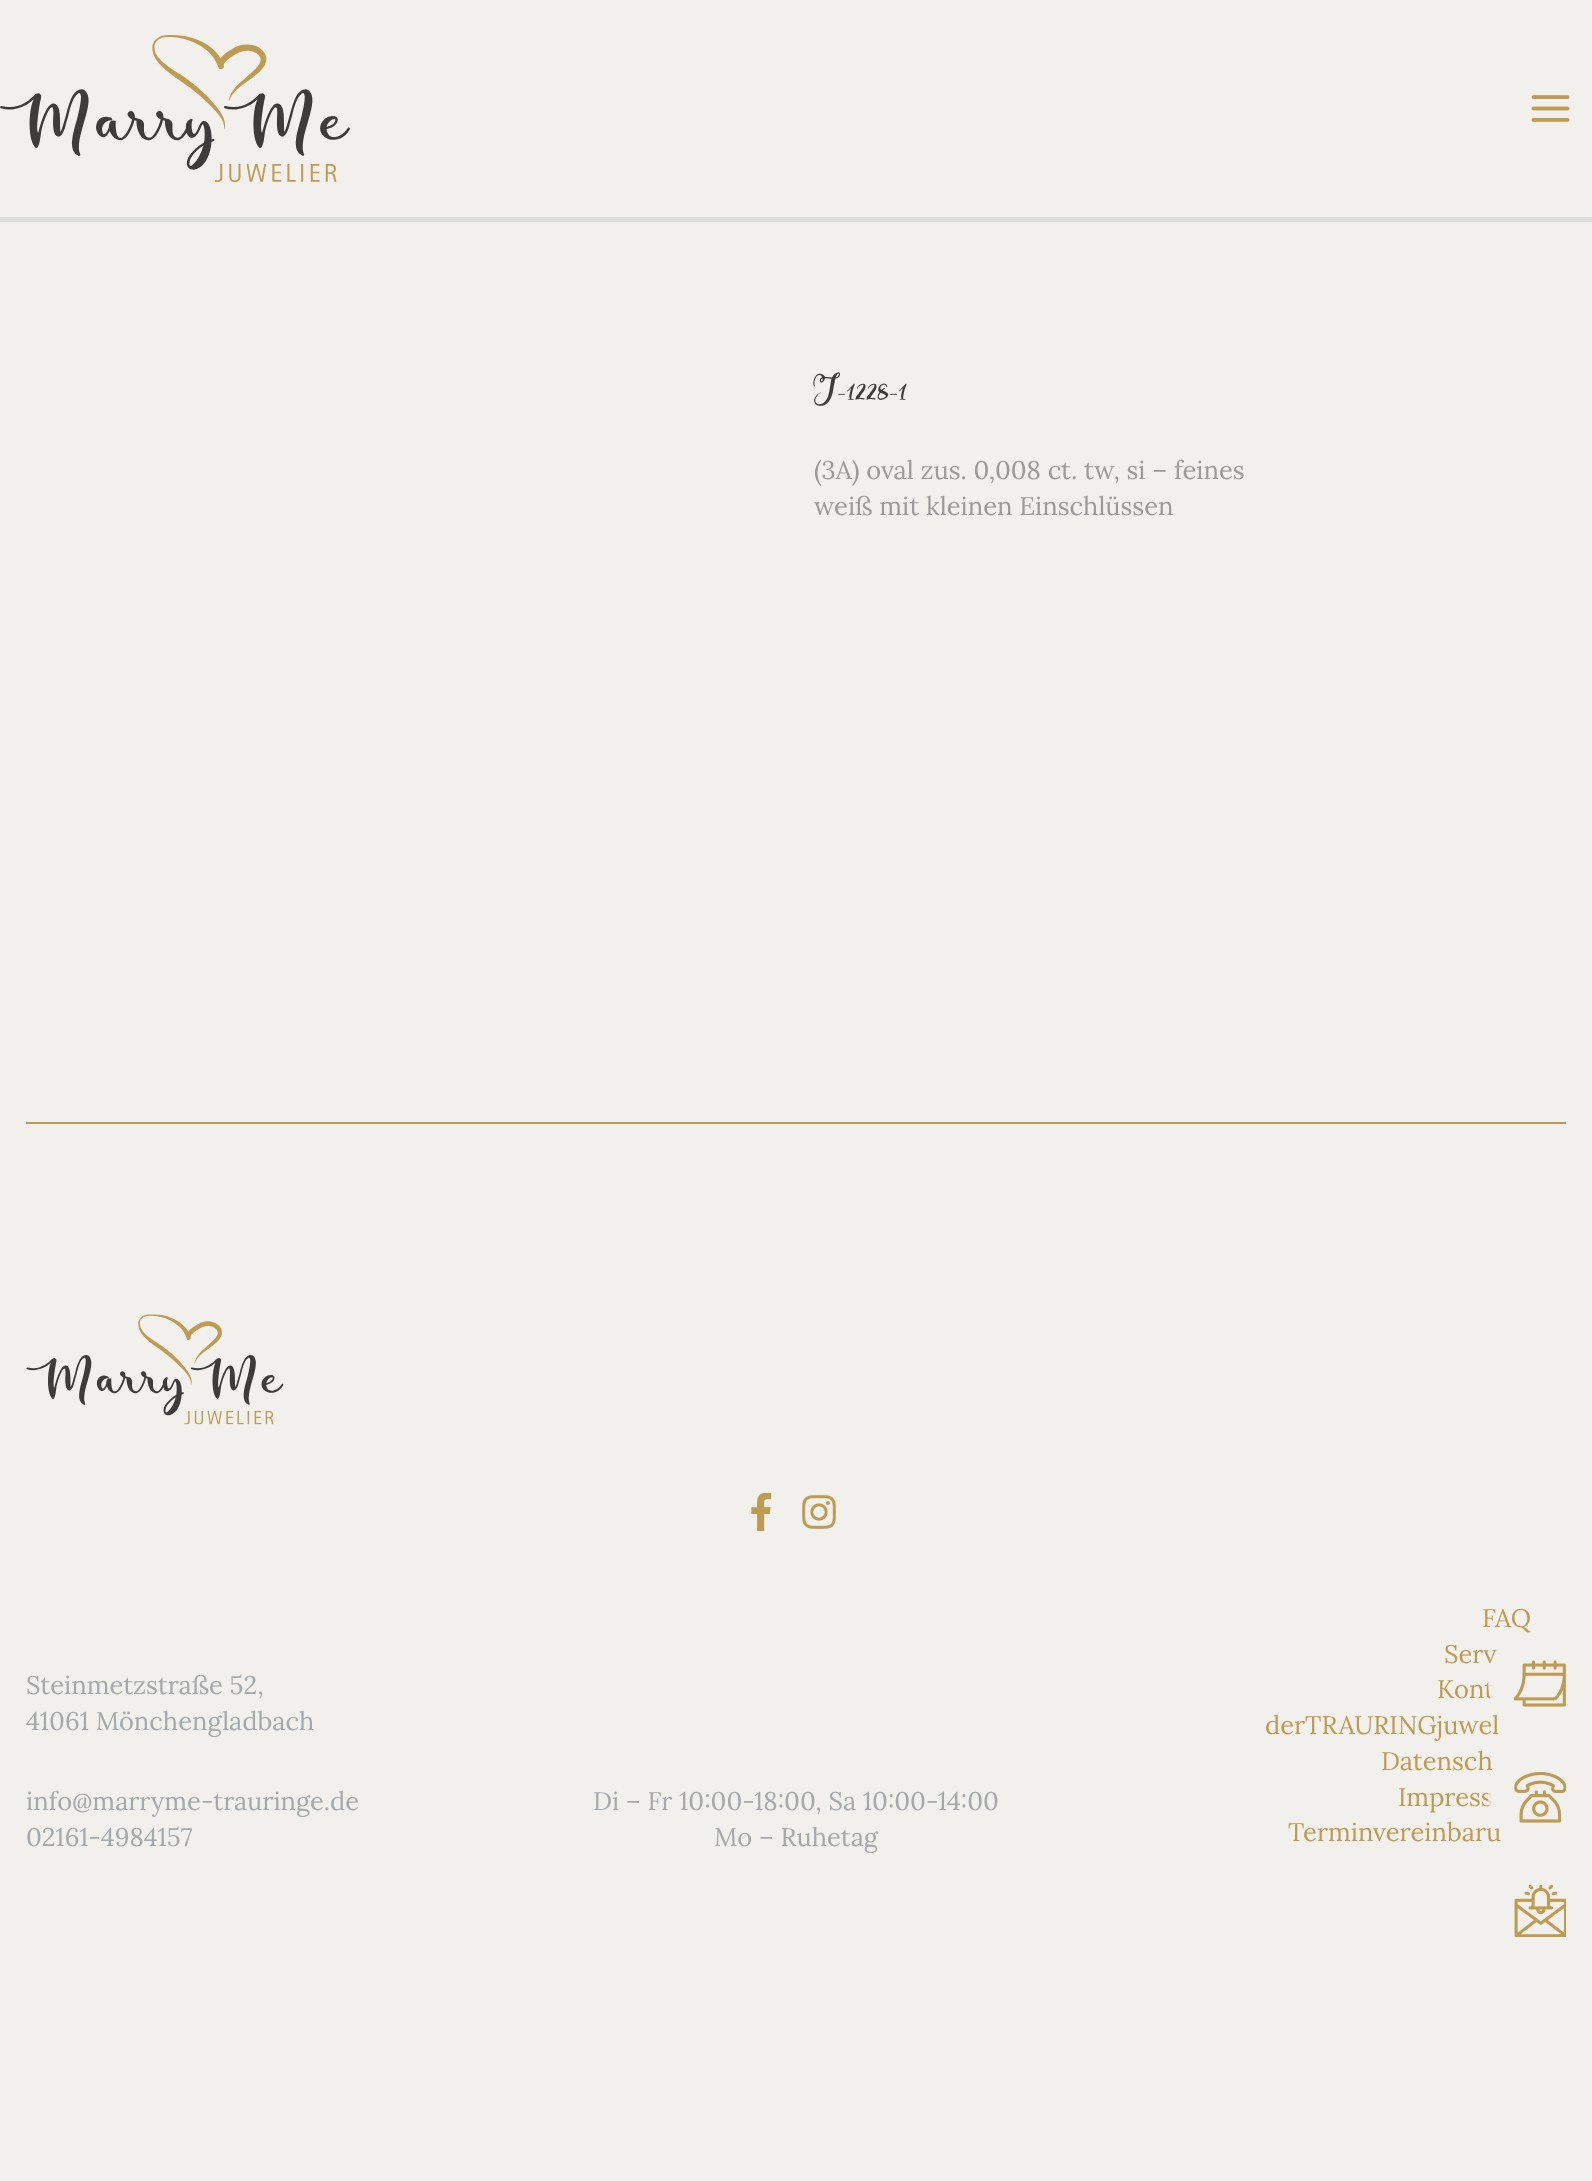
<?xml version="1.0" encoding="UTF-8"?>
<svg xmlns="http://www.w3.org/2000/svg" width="1592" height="2181">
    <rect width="100%" height="100%" fill="#F2F0EC"/>
    <rect x="0" y="217" width="1592" height="5" fill="#DDDDDD"/>
    <image x="0" y="35" width="350" height="147" href="img_01.png"/>
    <image x="1531" y="95" width="39" height="27" href="img_02.png"/>
    <text x="814" y="405" font-family="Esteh" font-size="41.5" fill="#3C3C3C">J-1228-1</text>
    <text font-family="Lora" font-size="25.5" fill="#9A9A9A">
        <tspan x="814" y="479">(3A) oval zus. 0,008 ct. tw, si – feines</tspan>
        <tspan x="814" y="515">weiß mit kleinen Einschlüssen</tspan>
    </text>
    <rect x="26" y="1122" width="1540" height="2" fill="#BE9B53"/>
    <image x="26" y="1314" width="258" height="111" href="img_03.png"/>
    <image x="751" y="1493" width="21" height="38" href="img_04.png"/>
    <image x="802" y="1495" width="34" height="34" href="img_05.png"/>
    <text font-family="Lora" font-size="25.5" fill="#A3A9AC">
        <tspan x="26" y="1694">Steinmetzstraße 52,</tspan>
        <tspan x="26" y="1730">41061 Mönchengladbach</tspan>
    </text>
    <text font-family="Lora" font-size="25.5" fill="#A3A9AC">
        <tspan x="26" y="1810">info@marryme-trauringe.de</tspan>
        <tspan x="26" y="1846">02161-4984157</tspan>
    </text>
    <text x="593" y="1810" font-family="Lora" font-size="25.5" fill="#A3A9AC">Di – Fr 10:00-18:00, Sa 10:00-14:00</text>
    <text x="714" y="1846" font-family="Lora" font-size="25.5" fill="#A3A9AC">Mo – Ruhetag</text>
    <text x="1482" y="1627" font-family="Lora" font-size="25.5" fill="#BE9B53">FAQ</text>
    <text x="1444" y="1663" font-family="Lora" font-size="25.5" fill="#BE9B53">Serv</text>
    <text x="1437" y="1698" font-family="Lora" font-size="25.5" fill="#BE9B53">Kont</text>
    <text x="1265" y="1734" font-family="Lora" font-size="25.5" fill="#BE9B53">derTRAURINGjuwel</text>
    <text x="1381" y="1770" font-family="Lora" font-size="25.5" fill="#BE9B53">Datensch</text>
    <text x="1398" y="1806" font-family="Lora" font-size="25.5" fill="#BE9B53">Impress</text>
    <text x="1288" y="1841" font-family="Lora" font-size="25.5" fill="#BE9B53">Terminvereinbaru</text>
    <rect x="1488" y="1631" width="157" height="105" rx="52.5" fill="#F2F0EC" fill-opacity="0.75"/>
    <image x="1514" y="1660" width="52" height="47" href="img_06.png"/>
    <rect x="1488" y="1745" width="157" height="105" rx="52.5" fill="#F2F0EC" fill-opacity="0.75"/>
    <image x="1514" y="1771" width="52" height="52" href="img_07.png"/>
    <image x="1514" y="1885" width="52" height="52" href="img_08.png"/>
</svg>
